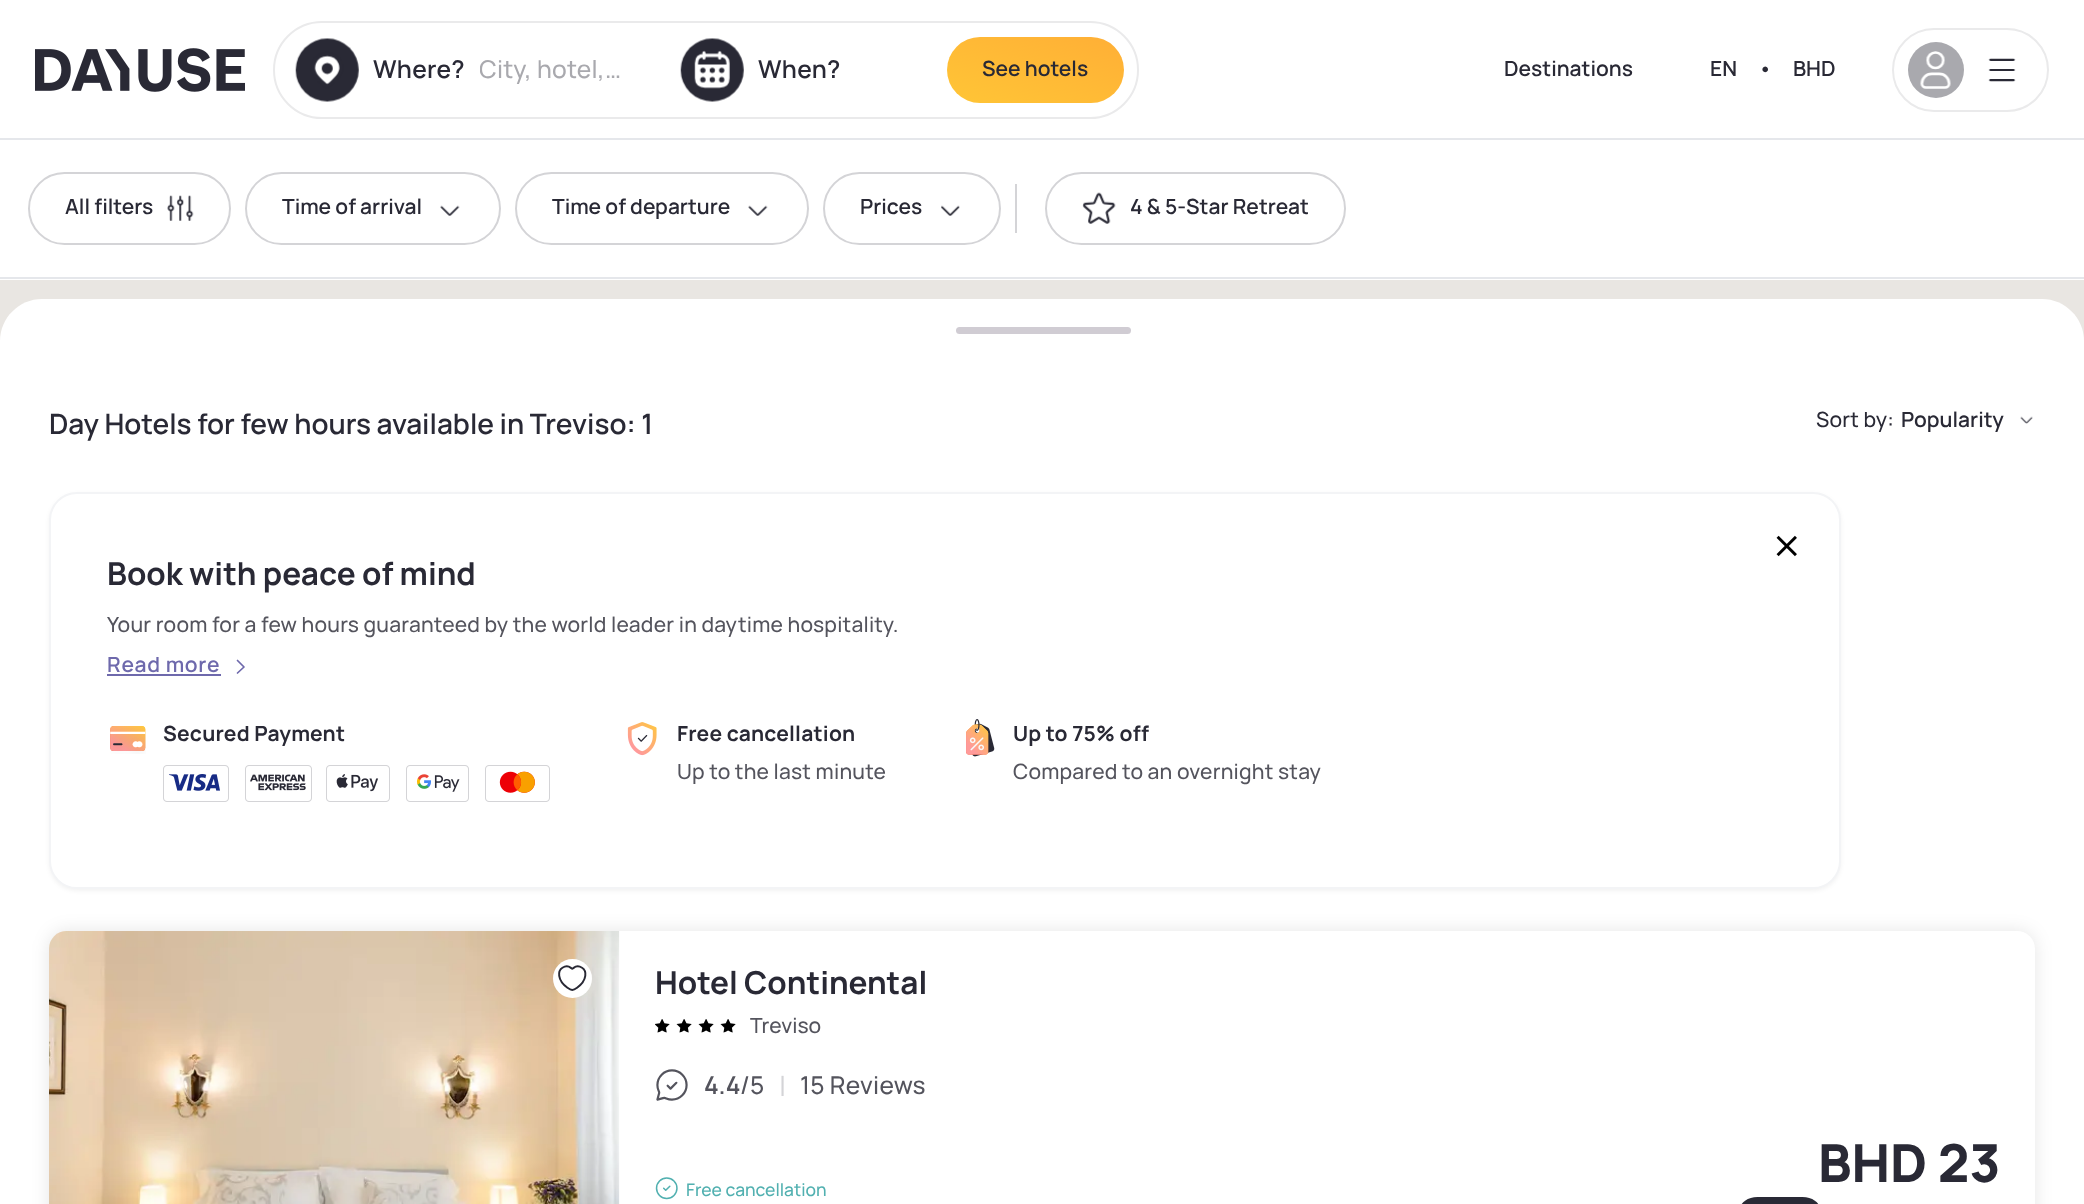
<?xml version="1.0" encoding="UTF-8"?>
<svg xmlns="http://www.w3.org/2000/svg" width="2084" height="1204">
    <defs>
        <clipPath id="clip1"><rect x="480" y="51" width="145" height="38"/></clipPath>
        <linearGradient id="g1" gradientUnits="userSpaceOnUse" x1="1057" y1="12" x2="1013" y2="128"><stop offset="0" stop-color="#FFAF36"/><stop offset="1" stop-color="#FFC536"/></linearGradient>
        <filter id="blur1" x="-50%" y="-200%" width="200%" height="500%"><feGaussianBlur stdDeviation="2"/></filter>
        <filter id="blur2" x="-50%" y="-200%" width="200%" height="500%"><feGaussianBlur stdDeviation="9"/></filter>
    </defs>
    <rect width="100%" height="100%" fill="#FFFFFF"/>
    <rect x="0" y="138" width="2084" height="2" fill="#E5E7EB"/>
    <image x="35" y="48" width="210" height="44" href="img_01.png"/>
    <rect x="274" y="22" width="864" height="96" rx="48" fill="none" stroke="#EAEAEB" stroke-width="2"/>
    <image x="295" y="38" width="64" height="64" href="img_02.png"/>
    <text x="373" y="78" font-family="Manrope" font-size="24.5" font-weight="600" letter-spacing="0.25" fill="#292935">Where?</text>
    <g clip-path="url(#clip1)">
        <text x="479" y="78" font-family="Manrope" font-size="24.5" font-weight="500" letter-spacing="0.25" fill="#A9A9AE">City, hotel,…</text>
    </g>
    <image x="680" y="38" width="64" height="64" href="img_03.png"/>
    <text x="758" y="78" font-family="Manrope" font-size="24.5" font-weight="600" letter-spacing="0.25" fill="#292935">When?</text>
    <rect x="947" y="37" width="177" height="66" rx="33" fill="url(#g1)"/>
    <text x="982" y="76" font-family="Manrope" font-size="21" font-weight="600" fill="#292935">See hotels</text>
    <text x="1504" y="76" font-family="Manrope" font-size="21" font-weight="600" fill="#292935">Destinations</text>
    <text x="1710" y="76" font-family="Manrope" font-size="21" font-weight="600" fill="#292935">EN</text>
    <text x="1758" y="76" font-family="Manrope" font-size="21" font-weight="600" fill="#292935">•</text>
    <text x="1793" y="76" font-family="Manrope" font-size="21" font-weight="600" fill="#292935">BHD</text>
    <rect x="1893" y="29" width="155" height="82" rx="41" fill="none" stroke="#EAEAEB" stroke-width="2"/>
    <circle cx="1936" cy="70" r="28" fill="#A9A9AE"/>
    <image x="1920" y="51" width="31" height="38" href="img_04.png"/>
    <image x="1988" y="58" width="28" height="24" href="img_05.png"/>
    <rect x="0" y="277" width="2084" height="2" fill="#E5E7EB"/>
    <rect x="29" y="173" width="201" height="71" rx="35.5" fill="none" stroke="#D4D4D7" stroke-width="2"/>
    <text x="65" y="214" font-family="Manrope" font-size="21" font-weight="600" fill="#292935">All filters</text>
    <image x="167" y="195" width="27" height="26" href="img_06.png"/>
    <rect x="246" y="173" width="254" height="71" rx="35.5" fill="none" stroke="#D4D4D7" stroke-width="2"/>
    <text x="282" y="214" font-family="Manrope" font-size="21" font-weight="600" fill="#292935">Time of arrival</text>
    <image x="440" y="205" width="20" height="11" href="img_07.png"/>
    <rect x="516" y="173" width="292" height="71" rx="35.5" fill="none" stroke="#D4D4D7" stroke-width="2"/>
    <text x="552" y="214" font-family="Manrope" font-size="21" font-weight="600" fill="#292935">Time of departure</text>
    <image x="748" y="205" width="20" height="11" href="img_07.png"/>
    <rect x="824" y="173" width="176" height="71" rx="35.5" fill="none" stroke="#D4D4D7" stroke-width="2"/>
    <text x="860" y="214" font-family="Manrope" font-size="21" font-weight="600" fill="#292935">Prices</text>
    <image x="941" y="205" width="19" height="11" href="img_08.png"/>
    <rect x="1015" y="184" width="2" height="49" fill="#D4D4D7"/>
    <rect x="1046" y="173" width="299" height="71" rx="35.5" fill="none" stroke="#D4D4D7" stroke-width="2"/>
    <image x="1082" y="192" width="34" height="32" href="img_09.png"/>
    <text x="1130" y="214" font-family="Manrope" font-size="21" font-weight="600" fill="#292935">4 &amp; 5-Star Retreat</text>
    <rect x="0" y="280" width="2084" height="61" fill="#E9E6E2"/>
    <path d="M 42 299 H 2042 C 2065 299 2084 318 2084 341 V 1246 H 0 V 341 C 0 318 19 299 42 299 Z" fill="#FFFFFF"/>
    <rect x="956" y="327" width="175" height="7" rx="3.5" fill="#D0CCD3"/>
    <text x="49" y="434" font-family="Manrope" font-size="28" font-weight="600" fill="#292935">Day Hotels for few hours available in Treviso: 1</text>
    <text x="1816" y="427" font-family="Manrope" font-size="21" font-weight="500" letter-spacing="0.2" fill="#292935">Sort by:</text>
    <text x="1901" y="427" font-family="Manrope" font-size="21" font-weight="600" fill="#292935">Popularity</text>
    <image x="2020" y="416" width="13" height="8" href="img_10.png"/>
    <rect x="49" y="494" width="1792" height="397" rx="28" fill="#000000" fill-opacity="0.05" filter="url(#blur1)"/>
    <rect x="50" y="493" width="1790" height="395" rx="27" fill="#FFFFFF" stroke="#F3F4F6" stroke-width="2"/>
    <image x="1776" y="535" width="21" height="22" href="img_11.png"/>
    <text x="107" y="585" font-family="Manrope" font-size="31.5" font-weight="700" fill="#292935">Book with peace of mind</text>
    <text x="107" y="632" font-family="Manrope" font-size="21" font-weight="500" letter-spacing="0.2" fill="#54545D">Your room for a few hours guaranteed by the world leader in daytime hospitality.</text>
    <text x="107" y="672" font-family="Manrope" font-size="21" font-weight="600" letter-spacing="0.75" fill="#6E69AC">Read more</text>
    <rect x="107" y="674" width="114" height="2" fill="#6E69AC"/>
    <path d="M 237.5 660.5 L 244 667 L 237.5 673" fill="none" stroke="#6E69AC" stroke-width="1.7" stroke-linecap="round" stroke-linejoin="round"/>
    <image x="110" y="726" width="36" height="28" href="img_12.png"/>
    <text x="163" y="741" font-family="Manrope" font-size="21" font-weight="700" letter-spacing="0.2" fill="#292935">Secured Payment</text>
    <image x="163" y="765" width="66" height="37" href="img_13.png"/>
    <image x="245" y="765" width="67" height="37" href="img_14.png"/>
    <image x="326" y="765" width="64" height="37" href="img_15.png"/>
    <image x="406" y="765" width="63" height="37" href="img_16.png"/>
    <image x="485" y="765" width="65" height="37" href="img_17.png"/>
    <image x="627" y="722" width="30" height="34" href="img_18.png"/>
    <text x="677" y="741" font-family="Manrope" font-size="21" font-weight="700" letter-spacing="0.2" fill="#292935">Free cancellation</text>
    <text x="677" y="779" font-family="Manrope" font-size="21" font-weight="500" letter-spacing="0.2" fill="#54545D">Up to the last minute</text>
    <image x="966" y="719" width="29" height="38" href="img_19.png"/>
    <text x="1013" y="741" font-family="Manrope" font-size="21" font-weight="700" letter-spacing="0.2" fill="#292935">Up to 75% off</text>
    <text x="1013" y="779" font-family="Manrope" font-size="21" font-weight="500" letter-spacing="0.2" fill="#54545D">Compared to an overnight stay</text>
    <rect x="49" y="931" width="1986" height="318" rx="18" fill="#000000" fill-opacity="0.1" filter="url(#blur2)"/>
    <rect x="49" y="931" width="1986" height="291" rx="18" fill="#FFFFFF"/>
    <image x="49" y="931" width="571" height="273" href="img_20.png"/>
    <circle cx="572.5" cy="978.5" r="19.5" fill="#FFFFFF"/>
    <image x="558" y="965" width="29" height="26" href="img_21.png"/>
    <text x="655" y="994" font-family="Manrope" font-size="31.5" font-weight="700" fill="#292935">Hotel Continental</text>
    <image x="655" y="1019" width="81" height="14" href="img_22.png"/>
    <text x="750" y="1033" font-family="Manrope" font-size="21" font-weight="500" fill="#54545D">Treviso</text>
    <image x="656" y="1069" width="32" height="32" href="img_23.png"/>
    <text x="704" y="1094" font-family="Manrope" font-size="24.5" font-weight="600" letter-spacing="0.25" fill="#54545D">4.4</text>
    <text x="740" y="1094" font-family="Manrope" font-size="24.5" font-weight="500" letter-spacing="0.25" fill="#54545D">/5</text>
    <text x="779" y="1096" font-family="Manrope" font-size="28" fill="#D4D4D7">|</text>
    <text x="800" y="1094" font-family="Manrope" font-size="24.5" font-weight="500" letter-spacing="0.25" fill="#54545D">15 Reviews</text>
    <text x="1818" y="1182" font-family="Manrope" font-size="52.5" font-weight="800" fill="#292935">BHD 23</text>
    <rect x="1740" y="1197" width="80" height="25" rx="17.5" fill="#292935"/>
    <image x="655" y="1177" width="23" height="23" href="img_24.png"/>
    <text x="686" y="1196" font-family="Manrope" font-size="17.5" font-weight="500" fill="#51B0B0">Free cancellation</text>
</svg>
